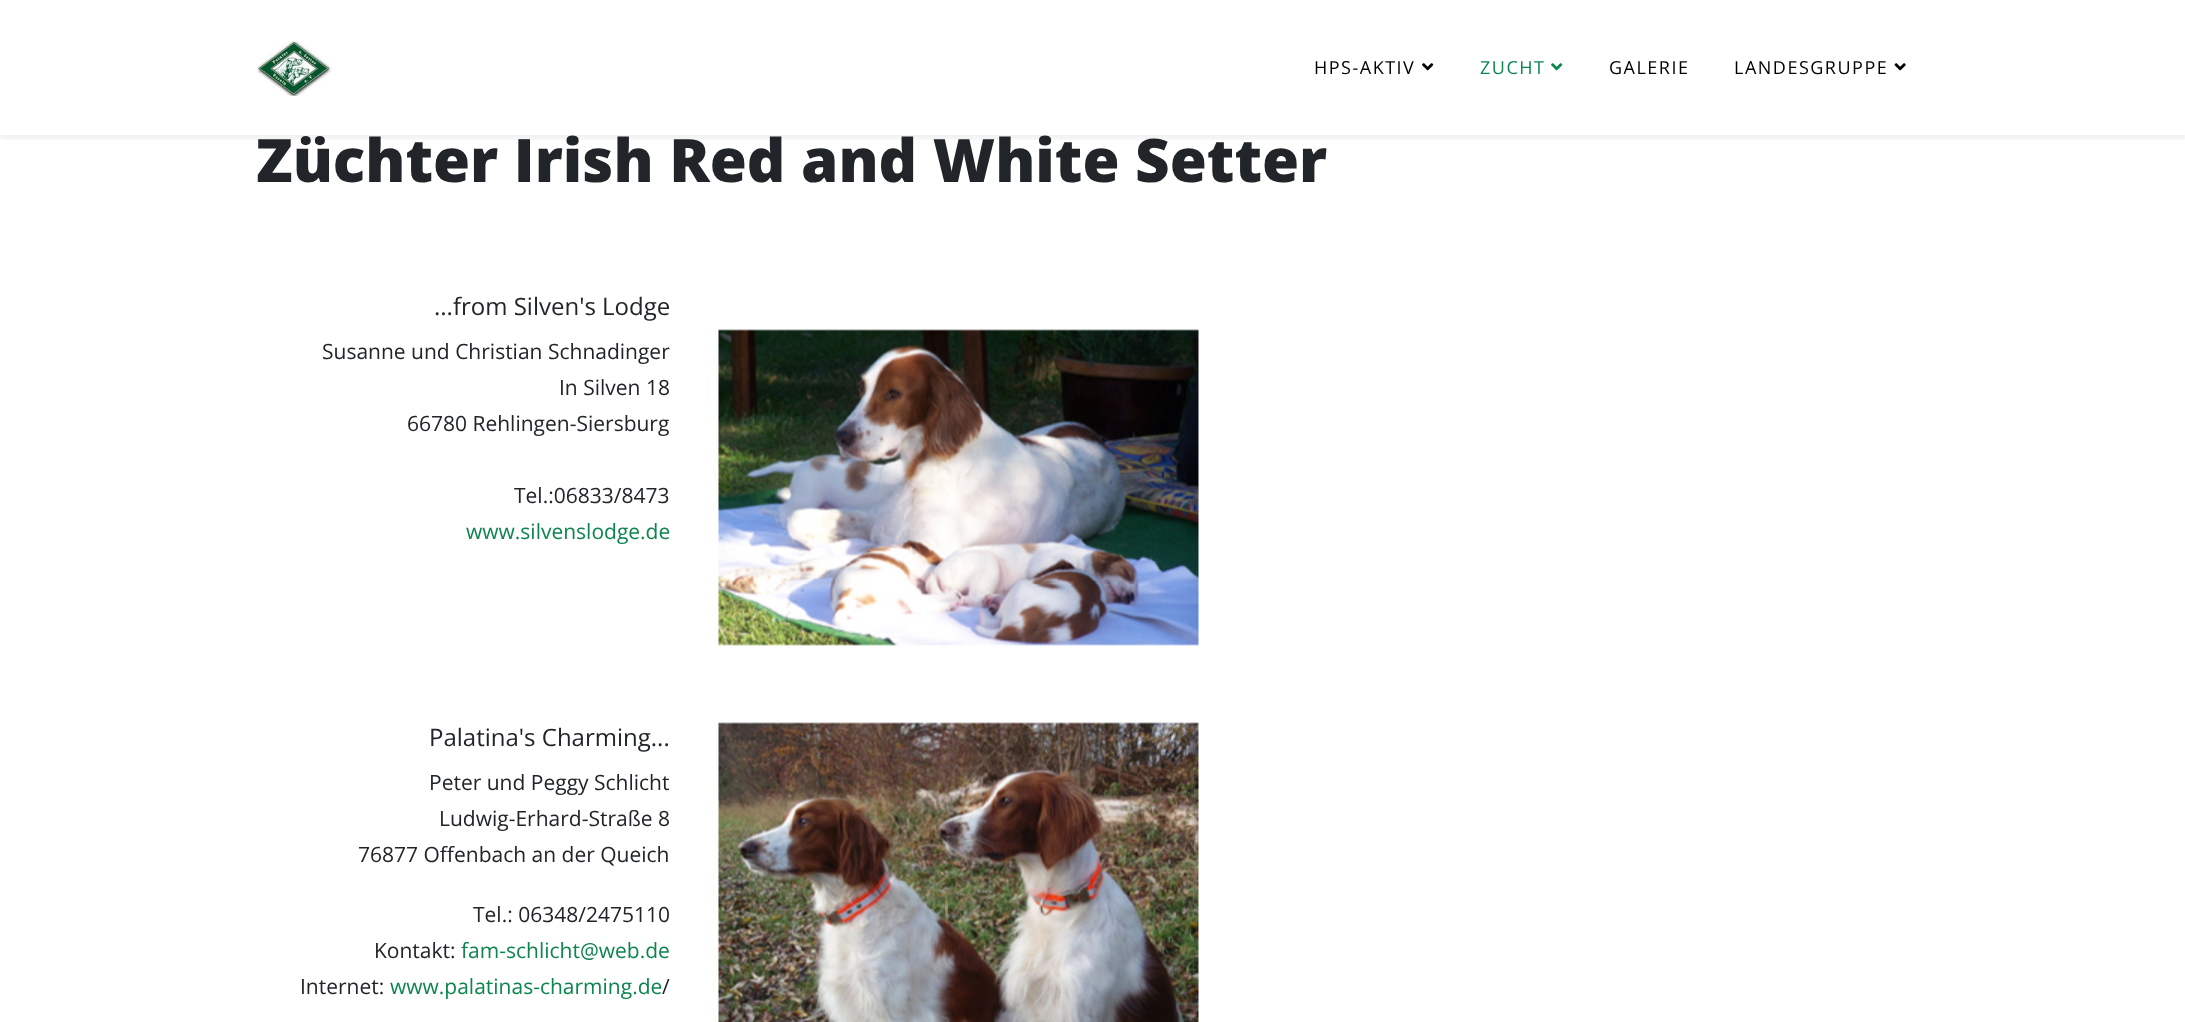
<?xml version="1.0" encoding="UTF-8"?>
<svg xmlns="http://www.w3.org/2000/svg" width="2185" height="1022">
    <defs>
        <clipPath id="clip1"><rect x="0" y="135" width="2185" height="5"/></clipPath>
        <filter id="blur1" x="-50%" y="-200%" width="200%" height="500%"><feGaussianBlur stdDeviation="2"/></filter>
    </defs>
    <rect width="100%" height="100%" fill="#FFFFFF"/>
    <g clip-path="url(#clip1)">
        <rect x="0" y="5" width="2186" height="135" fill="#000000" fill-opacity="0.05" filter="url(#blur1)"/>
    </g>
    <image x="256" y="40" width="76" height="56" href="img_01.png"/>
    <text x="1314" y="74" font-family="Open Sans" font-size="18" letter-spacing="1.5" fill="#000000">HPS-AKTIV</text>
    <image x="1422" y="63" width="12" height="8" href="img_02.png"/>
    <text x="1480" y="74" font-family="Open Sans" font-size="18" letter-spacing="1.5" fill="#0D854D">ZUCHT</text>
    <image x="1551" y="63" width="12" height="8" href="img_03.png"/>
    <text x="1609" y="74" font-family="Open Sans" font-size="18" letter-spacing="1.5" fill="#000000">GALERIE</text>
    <text x="1734" y="74" font-family="Open Sans" font-size="18" letter-spacing="1.5" fill="#000000">LANDESGRUPPE</text>
    <image x="1894" y="63" width="12" height="8" href="img_04.png"/>
    <text x="256" y="182" font-family="Open Sans" font-size="60" font-weight="800" fill="#212529">Züchter Irish Red and White Setter</text>
    <text x="434" y="315" font-family="Open Sans" font-size="24" fill="#212529">...from Silven's Lodge</text>
    <text x="322" y="359" font-family="Open Sans" font-size="21" fill="#212529">Susanne und Christian Schnadinger</text>
    <text x="559" y="395" font-family="Open Sans" font-size="21" fill="#212529">In Silven 18</text>
    <text x="407" y="431" font-family="Open Sans" font-size="21" fill="#212529">66780 Rehlingen-Siersburg</text>
    <text x="514" y="503" font-family="Open Sans" font-size="21" fill="#212529">Tel.:06833/8473</text>
    <text x="466" y="539" font-family="Open Sans" font-size="21" fill="#0D854D">www.silvenslodge.de</text>
    <image x="718" y="329" width="481" height="317" href="img_05.png"/>
    <text x="429" y="746" font-family="Open Sans" font-size="24" fill="#212529">Palatina's Charming...</text>
    <text x="429" y="790" font-family="Open Sans" font-size="21" fill="#212529">Peter und Peggy Schlicht</text>
    <text x="439" y="826" font-family="Open Sans" font-size="21" fill="#212529">Ludwig-Erhard-Straße 8</text>
    <text x="358" y="862" font-family="Open Sans" font-size="21" fill="#212529">76877 Offenbach an der Queich</text>
    <text x="473" y="922" font-family="Open Sans" font-size="21" fill="#212529">Tel.: 06348/2475110</text>
    <text x="374" y="958" font-family="Open Sans" font-size="21" fill="#212529">Kontakt:</text>
    <text x="461" y="958" font-family="Open Sans" font-size="21" fill="#0D854D">fam-schlicht@web.de</text>
    <text x="300" y="994" font-family="Open Sans" font-size="21" fill="#212529">Internet:</text>
    <text x="390" y="994" font-family="Open Sans" font-size="21" fill="#0D854D">www.palatinas-charming.de</text>
    <text x="662" y="994" font-family="Open Sans" font-size="21" fill="#212529">/</text>
    <image x="718" y="722" width="481" height="300" href="img_06.png"/>
</svg>
